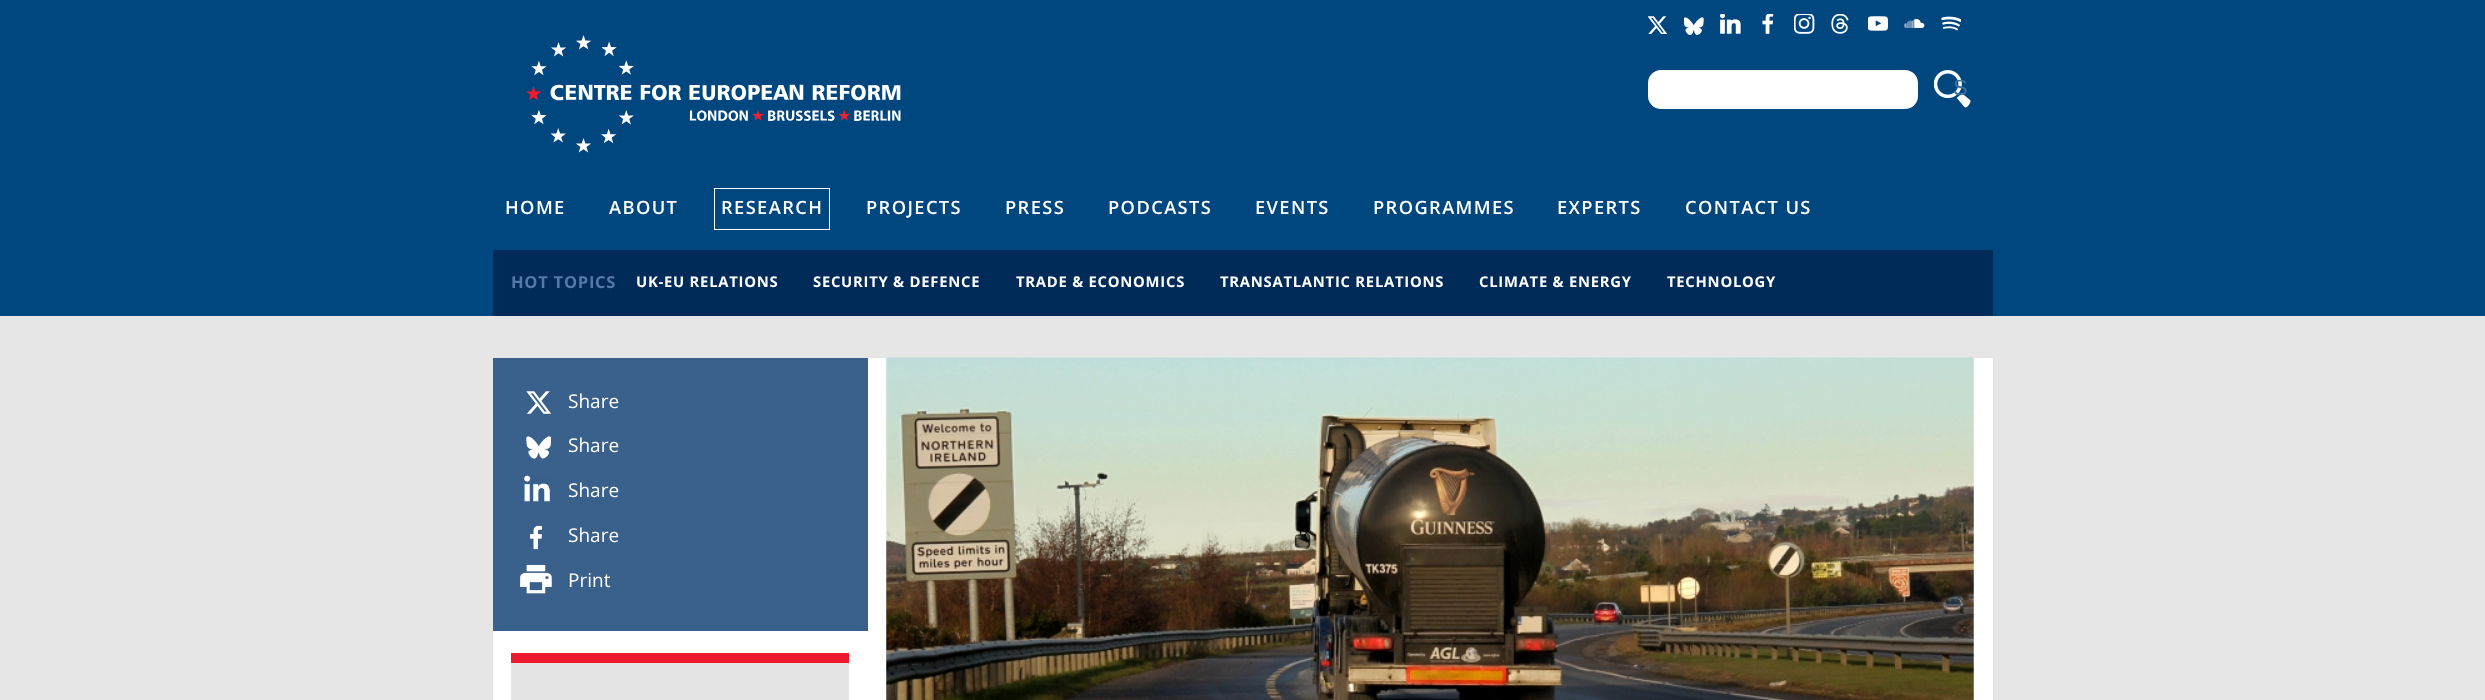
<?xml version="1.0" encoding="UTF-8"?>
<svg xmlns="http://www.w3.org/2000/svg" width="2485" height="700">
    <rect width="100%" height="100%" fill="#E6E6E6"/>
    <rect x="0" y="0" width="2485" height="316" fill="#00467F"/>
    <image x="1648" y="16" width="20" height="18" href="img_01.png"/>
    <image x="1684" y="17" width="20" height="18" href="img_02.png"/>
    <image x="1720" y="14" width="21" height="20" href="img_03.png"/>
    <image x="1762" y="14" width="12" height="20" href="img_04.png"/>
    <image x="1794" y="14" width="21" height="20" href="img_05.png"/>
    <image x="1831" y="14" width="18" height="20" href="img_06.png"/>
    <image x="1868" y="16" width="20" height="15" href="img_07.png"/>
    <image x="1904" y="19" width="21" height="9" href="img_08.png"/>
    <image x="1941" y="16" width="20" height="15" href="img_09.png"/>
    <image x="526" y="35" width="375" height="118" href="img_10.png"/>
    <rect x="1648" y="70" width="270" height="39" rx="13" fill="#FFFFFF"/>
    <image x="1934" y="70" width="37" height="38" href="img_11.png"/>
    <text x="1953" y="95" font-family="Liberation Sans" font-size="22" fill="#3B719D">S</text>
    <text x="505" y="214" font-family="Open Sans" font-size="18.25" font-weight="600" letter-spacing="1.4" fill="#FFFFFF">HOME</text>
    <text x="609" y="214" font-family="Open Sans" font-size="18.25" font-weight="600" letter-spacing="1.4" fill="#FFFFFF">ABOUT</text>
    <rect x="714.5" y="188.5" width="115" height="41" fill="none" stroke="#FFFFFF"/>
    <text x="721" y="214" font-family="Open Sans" font-size="18.25" font-weight="600" letter-spacing="1.4" fill="#FFFFFF">RESEARCH</text>
    <text x="866" y="214" font-family="Open Sans" font-size="18.25" font-weight="600" letter-spacing="1.4" fill="#FFFFFF">PROJECTS</text>
    <text x="1005" y="214" font-family="Open Sans" font-size="18.25" font-weight="600" letter-spacing="1.4" fill="#FFFFFF">PRESS</text>
    <text x="1108" y="214" font-family="Open Sans" font-size="18.25" font-weight="600" letter-spacing="1.4" fill="#FFFFFF">PODCASTS</text>
    <text x="1255" y="214" font-family="Open Sans" font-size="18.25" font-weight="600" letter-spacing="1.4" fill="#FFFFFF">EVENTS</text>
    <text x="1373" y="214" font-family="Open Sans" font-size="18.25" font-weight="600" letter-spacing="1.4" fill="#FFFFFF">PROGRAMMES</text>
    <text x="1557" y="214" font-family="Open Sans" font-size="18.25" font-weight="600" letter-spacing="1.4" fill="#FFFFFF">EXPERTS</text>
    <text x="1685" y="214" font-family="Open Sans" font-size="18.25" font-weight="600" letter-spacing="1.4" fill="#FFFFFF">CONTACT US</text>
    <rect x="493" y="250" width="1500" height="66" fill="#002A57"/>
    <text x="511" y="288" font-family="Open Sans" font-size="16.5" font-weight="700" letter-spacing="0.75" fill="#5579A8">HOT TOPICS</text>
    <text x="636" y="287" font-family="Open Sans" font-size="14.8" font-weight="700" letter-spacing="0.75" fill="#FFFFFF">UK-EU RELATIONS</text>
    <text x="813" y="287" font-family="Open Sans" font-size="14.8" font-weight="700" letter-spacing="0.75" fill="#FFFFFF">SECURITY &amp; DEFENCE</text>
    <text x="1016" y="287" font-family="Open Sans" font-size="14.8" font-weight="700" letter-spacing="0.75" fill="#FFFFFF">TRADE &amp; ECONOMICS</text>
    <text x="1220" y="287" font-family="Open Sans" font-size="14.8" font-weight="700" letter-spacing="0.75" fill="#FFFFFF">TRANSATLANTIC RELATIONS</text>
    <text x="1479" y="287" font-family="Open Sans" font-size="14.8" font-weight="700" letter-spacing="0.75" fill="#FFFFFF">CLIMATE &amp; ENERGY</text>
    <text x="1667" y="287" font-family="Open Sans" font-size="14.8" font-weight="700" letter-spacing="0.75" fill="#FFFFFF">TECHNOLOGY</text>
    <rect x="493" y="358" width="1500" height="342" fill="#FFFFFF"/>
    <rect x="493" y="358" width="375" height="273" fill="#3A618B"/>
    <image x="526" y="391" width="25" height="23" href="img_12.png"/>
    <text x="568" y="408" font-family="Open Sans" font-size="19" fill="#FFFFFF">Share</text>
    <image x="526" y="436" width="25" height="23" href="img_13.png"/>
    <text x="568" y="452" font-family="Open Sans" font-size="19" fill="#FFFFFF">Share</text>
    <image x="524" y="475" width="26" height="27" href="img_14.png"/>
    <text x="568" y="497" font-family="Open Sans" font-size="19" fill="#FFFFFF">Share</text>
    <image x="530" y="525" width="12" height="25" href="img_15.png"/>
    <text x="568" y="542" font-family="Open Sans" font-size="19" fill="#FFFFFF">Share</text>
    <image x="520" y="564" width="32" height="30" href="img_16.png"/>
    <text x="568" y="587" font-family="Open Sans" font-size="19" fill="#FFFFFF">Print</text>
    <rect x="511" y="663" width="338" height="37" fill="#E5E5E5"/>
    <rect x="511" y="653" width="338" height="10" fill="#ED1B2E"/>
    <image x="886" y="357" width="1088" height="343" href="img_17.png"/>
</svg>
